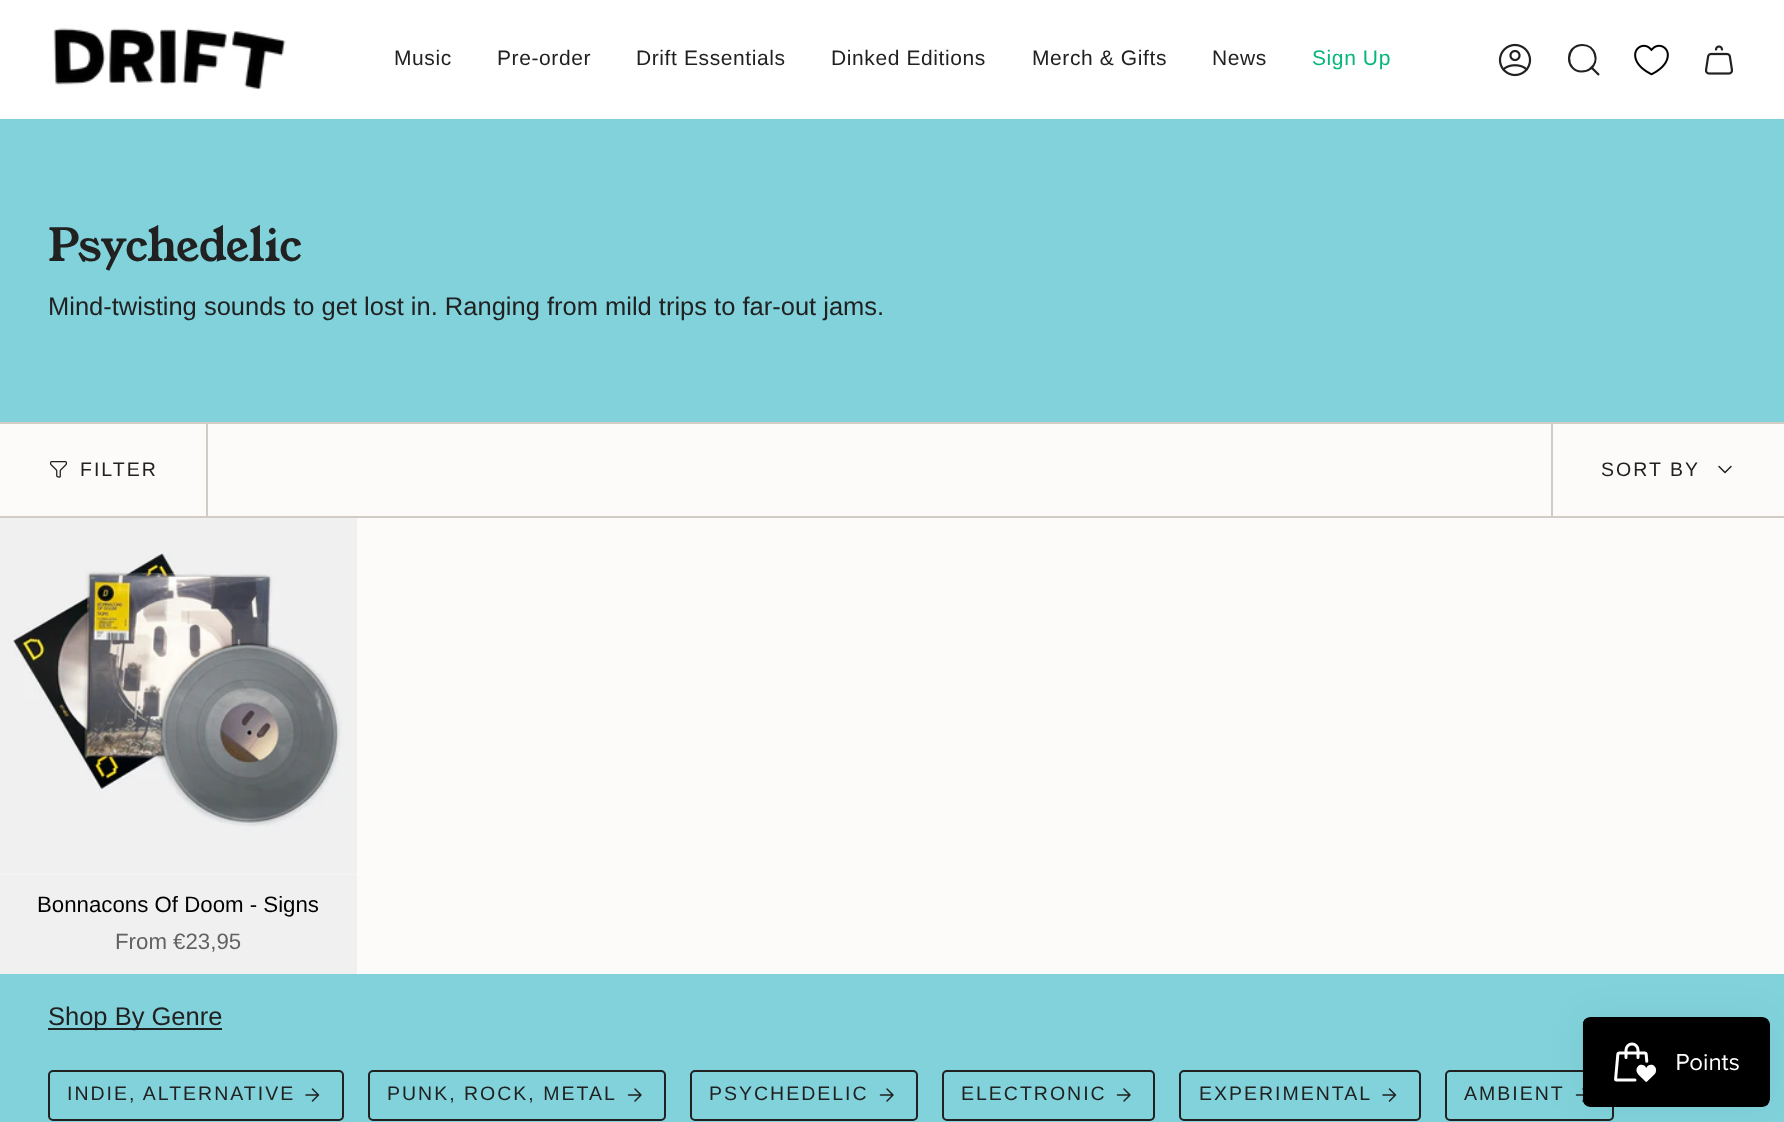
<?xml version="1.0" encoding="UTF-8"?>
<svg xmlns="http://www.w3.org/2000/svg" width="1784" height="1122">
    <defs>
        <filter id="blur1" x="-50%" y="-200%" width="200%" height="500%"><feGaussianBlur stdDeviation="19"/></filter>
    </defs>
    <rect width="100%" height="100%" fill="#FCFBF9"/>
    <rect x="0" y="0" width="1784" height="119" fill="#FFFFFF"/>
    <image x="53" y="28" width="233" height="62" href="img_01.png"/>
    <text x="394" y="65" font-family="Liberation Sans" font-size="21" letter-spacing="0.6" fill="#212121">Music</text>
    <text x="497" y="65" font-family="Liberation Sans" font-size="21" letter-spacing="0.6" fill="#212121">Pre-order</text>
    <text x="636" y="65" font-family="Liberation Sans" font-size="21" letter-spacing="0.6" fill="#212121">Drift Essentials</text>
    <text x="831" y="65" font-family="Liberation Sans" font-size="21" letter-spacing="0.6" fill="#212121">Dinked Editions</text>
    <text x="1032" y="65" font-family="Liberation Sans" font-size="21" letter-spacing="0.6" fill="#212121">Merch &amp; Gifts</text>
    <text x="1212" y="65" font-family="Liberation Sans" font-size="21" letter-spacing="0.6" fill="#212121">News</text>
    <text x="1312" y="65" font-family="Liberation Sans" font-size="21" letter-spacing="0.6" fill="#07B57D">Sign Up</text>
    <image x="1498" y="43" width="34" height="34" href="img_02.png"/>
    <path d="M 1582.5 45 C 1595 45 1600.5 61.5 1590 69 C 1587.5 71 1584.5 71.5 1581.5 71.5 C 1564.5 71 1565 45 1582.5 45 Z M 1591.5 67.5 L 1599 75" fill="none" stroke="#212121" stroke-width="2.2"/>
    <image x="1634" y="44" width="35" height="32" href="img_03.png"/>
    <image x="1705" y="45" width="28" height="30" href="img_04.png"/>
    <rect x="0" y="119" width="1784" height="303" fill="#81D2DB"/>
    <text x="48" y="261" font-family="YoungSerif" font-size="45" fill="#212121">Psychedelic</text>
    <text x="48" y="315" font-family="Liberation Sans" font-size="25.5" fill="#212121">Mind-twisting sounds to get lost in. Ranging from mild trips to far-out jams.</text>
    <rect x="0" y="422" width="1784" height="2" fill="#D1CDC4"/>
    <rect x="0" y="516" width="1784" height="2" fill="#D1CDC4"/>
    <rect x="206" y="423" width="2" height="93" fill="#D1CDC4"/>
    <image x="49" y="461" width="19" height="17" href="img_05.png"/>
    <text x="80" y="476" font-family="Liberation Sans" font-size="19.5" letter-spacing="2" fill="#212121">FILTER</text>
    <rect x="1551" y="423" width="2" height="93" fill="#D1CDC4"/>
    <text x="1601" y="476" font-family="Liberation Sans" font-size="19.5" letter-spacing="2" fill="#212121">SORT BY</text>
    <path d="M 1719 466.5 L 1725 472.5 L 1731 466.5" fill="none" stroke="#212121" stroke-width="1.5" stroke-linecap="round" stroke-linejoin="round"/>
    <rect x="0" y="875" width="357" height="99" fill="#F0F0F0"/>
    <image x="0" y="518" width="357" height="357" href="img_06.png"/>
    <text x="37" y="912" font-family="Liberation Sans" font-size="22.25" fill="#000000">Bonnacons Of Doom - Signs</text>
    <text x="115" y="949" font-family="Liberation Sans" font-size="22.25" fill="#636262">From €23,95</text>
    <rect x="0" y="974" width="1784" height="148" fill="#81D2DB"/>
    <rect x="48" y="1028" width="174" height="2" fill="#212121"/>
    <text x="48" y="1025" font-family="Liberation Sans" font-size="25.5" fill="#212121">Shop By Genre</text>
    <rect x="49" y="1071" width="294" height="49" rx="4" fill="none" stroke="#212121" stroke-width="2"/>
    <text x="67" y="1100" font-family="Liberation Sans" font-size="19.5" letter-spacing="2" fill="#212121">INDIE, ALTERNATIVE</text>
    <path d="M 306 1095 H 318.5 M 318.5 1095 L 312.5 1089 M 318.5 1095 L 312.5 1101" fill="none" stroke="#212121" stroke-width="1.5" stroke-linecap="round" stroke-linejoin="round"/>
    <rect x="369" y="1071" width="296" height="49" rx="4" fill="none" stroke="#212121" stroke-width="2"/>
    <text x="387" y="1100" font-family="Liberation Sans" font-size="19.5" letter-spacing="2" fill="#212121">PUNK, ROCK, METAL</text>
    <path d="M 628.5 1095 H 641 M 641 1095 L 635 1089 M 641 1095 L 635 1101" fill="none" stroke="#212121" stroke-width="1.5" stroke-linecap="round" stroke-linejoin="round"/>
    <rect x="691" y="1071" width="226" height="49" rx="4" fill="none" stroke="#212121" stroke-width="2"/>
    <text x="709" y="1100" font-family="Liberation Sans" font-size="19.5" letter-spacing="2" fill="#212121">PSYCHEDELIC</text>
    <path d="M 880.5 1095 H 893 M 893 1095 L 887 1089 M 893 1095 L 887 1101" fill="none" stroke="#212121" stroke-width="1.5" stroke-linecap="round" stroke-linejoin="round"/>
    <rect x="943" y="1071" width="211" height="49" rx="4" fill="none" stroke="#212121" stroke-width="2"/>
    <text x="961" y="1100" font-family="Liberation Sans" font-size="19.5" letter-spacing="2" fill="#212121">ELECTRONIC</text>
    <path d="M 1117.5 1095 H 1130 M 1130 1095 L 1124 1089 M 1130 1095 L 1124 1101" fill="none" stroke="#212121" stroke-width="1.5" stroke-linecap="round" stroke-linejoin="round"/>
    <rect x="1180" y="1071" width="240" height="49" rx="4" fill="none" stroke="#212121" stroke-width="2"/>
    <text x="1199" y="1100" font-family="Liberation Sans" font-size="19.5" letter-spacing="2" fill="#212121">EXPERIMENTAL</text>
    <path d="M 1383 1095 H 1395.5 M 1395.5 1095 L 1389.5 1089 M 1395.5 1095 L 1389.5 1101" fill="none" stroke="#212121" stroke-width="1.5" stroke-linecap="round" stroke-linejoin="round"/>
    <rect x="1446" y="1071" width="167" height="49" rx="4" fill="none" stroke="#212121" stroke-width="2"/>
    <text x="1464" y="1100" font-family="Liberation Sans" font-size="19.5" letter-spacing="2" fill="#212121">AMBIENT</text>
    <path d="M 1576.5 1095 H 1589 M 1589 1095 L 1583 1089 M 1589 1095 L 1583 1101" fill="none" stroke="#212121" stroke-width="1.5" stroke-linecap="round" stroke-linejoin="round"/>
    <rect x="1583" y="1017" width="187" height="90" rx="8" fill="#000000" fill-opacity="0.05" filter="url(#blur1)"/>
    <image x="1582" y="1017" width="188" height="90" href="img_07.png"/>
</svg>
